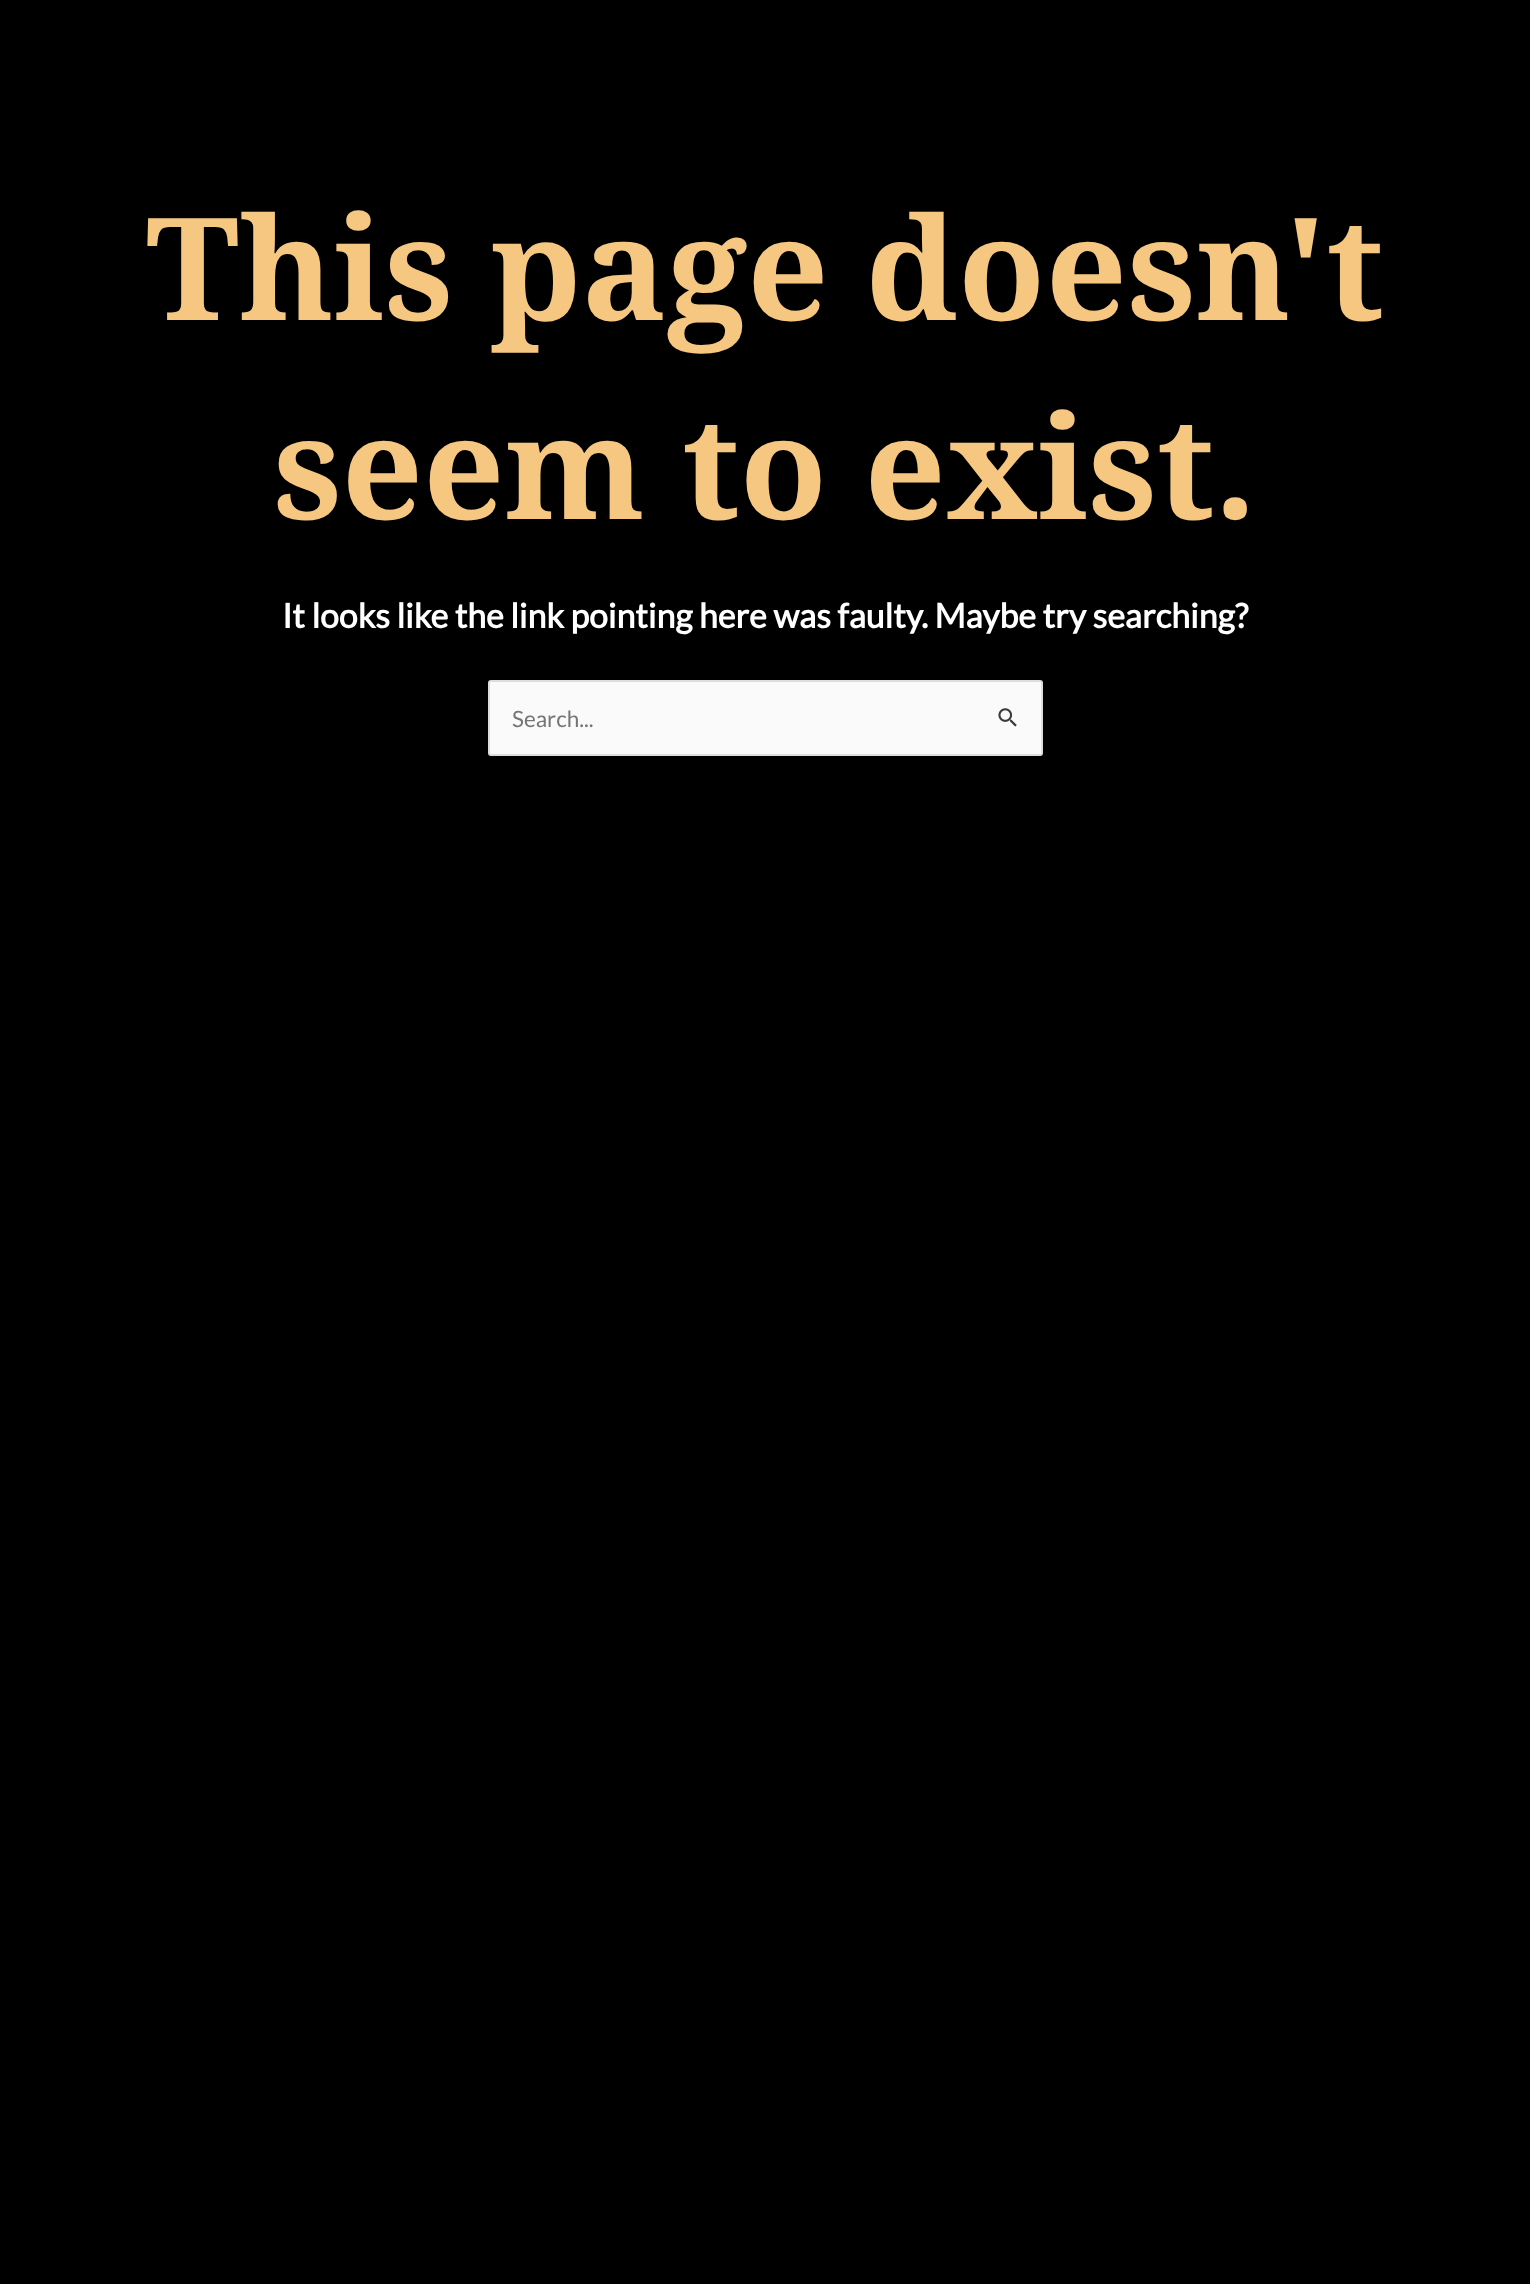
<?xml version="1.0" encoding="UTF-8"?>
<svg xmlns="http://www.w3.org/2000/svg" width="1530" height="2284">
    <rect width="100%" height="100%" fill="#000000"/>
    <text x="146" y="320" font-family="Noto Serif" font-size="142.5" font-weight="700" fill="#F5C781">This page doesn't</text>
    <text x="273" y="519" font-family="Noto Serif" font-size="142.5" font-weight="700" fill="#F5C781">seem to exist.</text>
    <text x="282" y="628" font-family="Lato" font-size="33.75" font-weight="700" fill="#FFFFFF">It looks like the link pointing here was faulty. Maybe try searching?</text>
    <rect x="489" y="681" width="553" height="74" rx="2" fill="#FAFAFA" stroke="#DDDDDD" stroke-width="2"/>
    <text x="512" y="727" font-family="Lato" font-size="22.5" fill="#757575">Search...</text>
    <image x="998" y="708" width="19" height="19" href="img_01.png"/>
</svg>
